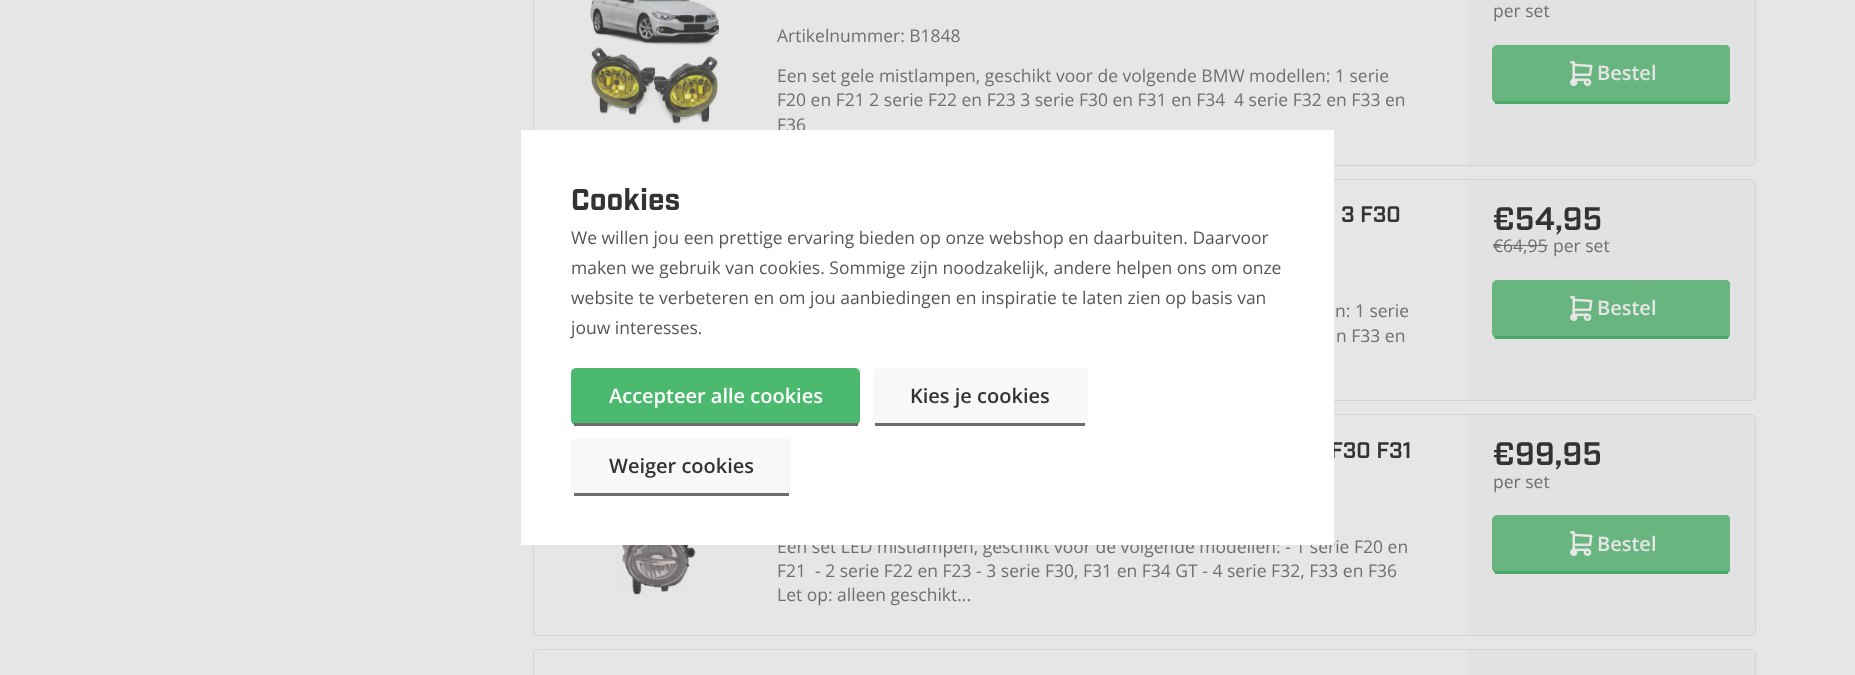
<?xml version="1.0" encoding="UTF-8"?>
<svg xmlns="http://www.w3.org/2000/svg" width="1855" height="675">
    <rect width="100%" height="100%" fill="#E6E6E6"/>
    <rect x="533.5" y="-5.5" width="1222" height="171" rx="4.5" fill="none" stroke="#D3D3D3"/>
    <image x="590" y="0" width="130" height="124" href="img_01.png"/>
    <text x="777" y="42" font-family="Open Sans" font-size="17.5" fill="#6F6F6F">Artikelnummer: B1848</text>
    <text font-family="Open Sans" font-size="17.5" fill="#6F6F6F">
        <tspan x="777" y="82">Een set gele mistlampen, geschikt voor de volgende BMW modellen: 1 serie</tspan>
        <tspan x="777" y="106">F20 en F21 2 serie F22 en F23 3 serie F30 en F31 en F34</tspan>
    </text>
    <text x="1234" y="106" font-family="Open Sans" font-size="17.5" fill="#6F6F6F">4 serie F32 en F33 en</text>
    <text x="777" y="131" font-family="Open Sans" font-size="17.5" fill="#6F6F6F">F36</text>
    <path d="M 1468 -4 H 1751 C 1753 -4 1755 -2 1755 0 V 161 C 1755 163 1753 165 1751 165 H 1468 Z" fill="#E2E2E2"/>
    <text x="1493" y="17" font-family="Open Sans" font-size="17.5" fill="#6F6F6F">per set</text>
    <rect x="1493" y="45" width="237" height="59" rx="5" fill="#4BA968"/>
    <rect x="1495" y="103" width="233" height="1" fill="#4BA968"/>
    <path d="M 1498 45 H 1725 C 1728 45 1730 47 1730 50 V 99 C 1730 100 1729 101 1727 101 H 1495 C 1494 101 1492 100 1492 99 V 50 C 1492 47 1495 45 1498 45 Z" fill="#68B580"/>
    <image x="1570" y="61" width="23" height="25" href="img_02.png"/>
    <text x="1597" y="80" font-family="Open Sans" font-size="20" font-weight="600" fill="#E6E6E6">Bestel</text>
    <rect x="533.5" y="179.5" width="1222" height="221" rx="4.5" fill="none" stroke="#D3D3D3"/>
    <text x="1341" y="222" font-family="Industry" font-size="22.5" font-weight="600" fill="#333333">3 F30</text>
    <text x="1335" y="317" font-family="Open Sans" font-size="17.5" fill="#6F6F6F">n: 1 serie</text>
    <text x="1336" y="342" font-family="Open Sans" font-size="17.5" fill="#6F6F6F">n F33 en</text>
    <path d="M 1468 180 H 1751 C 1753 180 1755 182 1755 184 V 396 C 1755 398 1753 400 1751 400 H 1468 Z" fill="#E2E2E2"/>
    <text x="1493" y="230" font-family="Industry" font-size="32.5" font-weight="600" fill="#333333">€54,95</text>
    <text x="1493" y="252" font-family="Open Sans" font-size="17.5" fill="#6F6F6F">€64,95</text>
    <rect x="1493" y="245" width="55" height="1" fill="#6F6F6F"/>
    <text x="1553" y="252" font-family="Open Sans" font-size="17.5" fill="#6F6F6F">per set</text>
    <rect x="1493" y="280" width="237" height="59" rx="5" fill="#4BA968"/>
    <rect x="1495" y="338" width="233" height="1" fill="#4BA968"/>
    <path d="M 1498 280 H 1725 C 1728 280 1730 282 1730 285 V 334 C 1730 335 1729 336 1727 336 H 1495 C 1494 336 1492 335 1492 334 V 285 C 1492 282 1495 280 1498 280 Z" fill="#68B580"/>
    <image x="1570" y="296" width="23" height="25" href="img_02.png"/>
    <text x="1597" y="315" font-family="Open Sans" font-size="20" font-weight="600" fill="#E6E6E6">Bestel</text>
    <rect x="533.5" y="414.5" width="1222" height="221" rx="4.5" fill="none" stroke="#D3D3D3"/>
    <text x="1330" y="458" font-family="Industry" font-size="22.5" font-weight="600" fill="#333333">F30 F31</text>
    <text font-family="Open Sans" font-size="17.5" fill="#6F6F6F">
        <tspan x="777" y="553">Een set LED mistlampen, geschikt voor de volgende modellen: - 1 serie F20 en</tspan>
        <tspan x="777" y="577">F21</tspan>
    </text>
    <text x="815" y="577" font-family="Open Sans" font-size="17.5" fill="#6F6F6F">- 2 serie F22 en F23 - 3 serie F30, F31 en F34 GT - 4 serie F32, F33 en F36</text>
    <text x="777" y="601" font-family="Open Sans" font-size="17.5" fill="#6F6F6F">Let op: alleen geschikt...</text>
    <path d="M 1468 415 H 1751 C 1753 415 1755 417 1755 419 V 631 C 1755 633 1753 635 1751 635 H 1468 Z" fill="#E2E2E2"/>
    <text x="1493" y="465" font-family="Industry" font-size="32.5" font-weight="600" fill="#333333">€99,95</text>
    <text x="1493" y="488" font-family="Open Sans" font-size="17.5" fill="#6F6F6F">per set</text>
    <rect x="1493" y="515" width="237" height="59" rx="5" fill="#4BA968"/>
    <rect x="1495" y="573" width="233" height="1" fill="#4BA968"/>
    <path d="M 1498 515 H 1725 C 1728 515 1730 517 1730 520 V 569 C 1730 570 1729 571 1727 571 H 1495 C 1494 571 1492 570 1492 569 V 520 C 1492 517 1495 515 1498 515 Z" fill="#68B580"/>
    <image x="1570" y="531" width="23" height="25" href="img_02.png"/>
    <text x="1597" y="551" font-family="Open Sans" font-size="20" font-weight="600" fill="#E6E6E6">Bestel</text>
    <image x="614" y="545" width="82" height="50" href="img_03.png"/>
    <rect x="533.5" y="649.5" width="1222" height="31" rx="4.5" fill="none" stroke="#D3D3D3"/>
    <path d="M 1468 650 H 1751 C 1753 650 1755 652 1755 654 V 675 C 1755 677 1753 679 1751 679 H 1468 Z" fill="#E2E2E2"/>
    <rect x="521" y="130" width="813" height="415" fill="#FFFFFF"/>
    <text x="571" y="210" font-family="Industry" font-size="30" font-weight="700" fill="#333333">Cookies</text>
    <text font-family="Open Sans" font-size="17.5" fill="#565656">
        <tspan x="571" y="244">We willen jou een prettige ervaring bieden op onze webshop en daarbuiten. Daarvoor</tspan>
        <tspan x="571" y="274">maken we gebruik van cookies. Sommige zijn noodzakelijk, andere helpen ons om onze</tspan>
        <tspan x="571" y="304">website te verbeteren en om jou aanbiedingen en inspiratie te laten zien op basis van</tspan>
        <tspan x="571" y="334">jouw interesses.</tspan>
    </text>
    <rect x="571" y="368" width="289" height="57" rx="5" fill="#4CBA6E"/>
    <rect x="574" y="423" width="284" height="3" fill="#6D6D6D"/>
    <text x="609" y="403" font-family="Open Sans" font-size="20" font-weight="600" fill="#FFFFFF">Accepteer alle cookies</text>
    <rect x="873" y="368" width="215" height="57" rx="5" fill="#F8F8F8"/>
    <rect x="875" y="423" width="210" height="3" fill="#6D6D6D"/>
    <text x="910" y="403" font-family="Open Sans" font-size="20" font-weight="600" fill="#333333">Kies je cookies</text>
    <rect x="571" y="438" width="220" height="57" rx="5" fill="#F8F8F8"/>
    <rect x="574" y="493" width="215" height="3" fill="#6D6D6D"/>
    <text x="609" y="473" font-family="Open Sans" font-size="20" font-weight="600" fill="#333333">Weiger cookies</text>
</svg>
